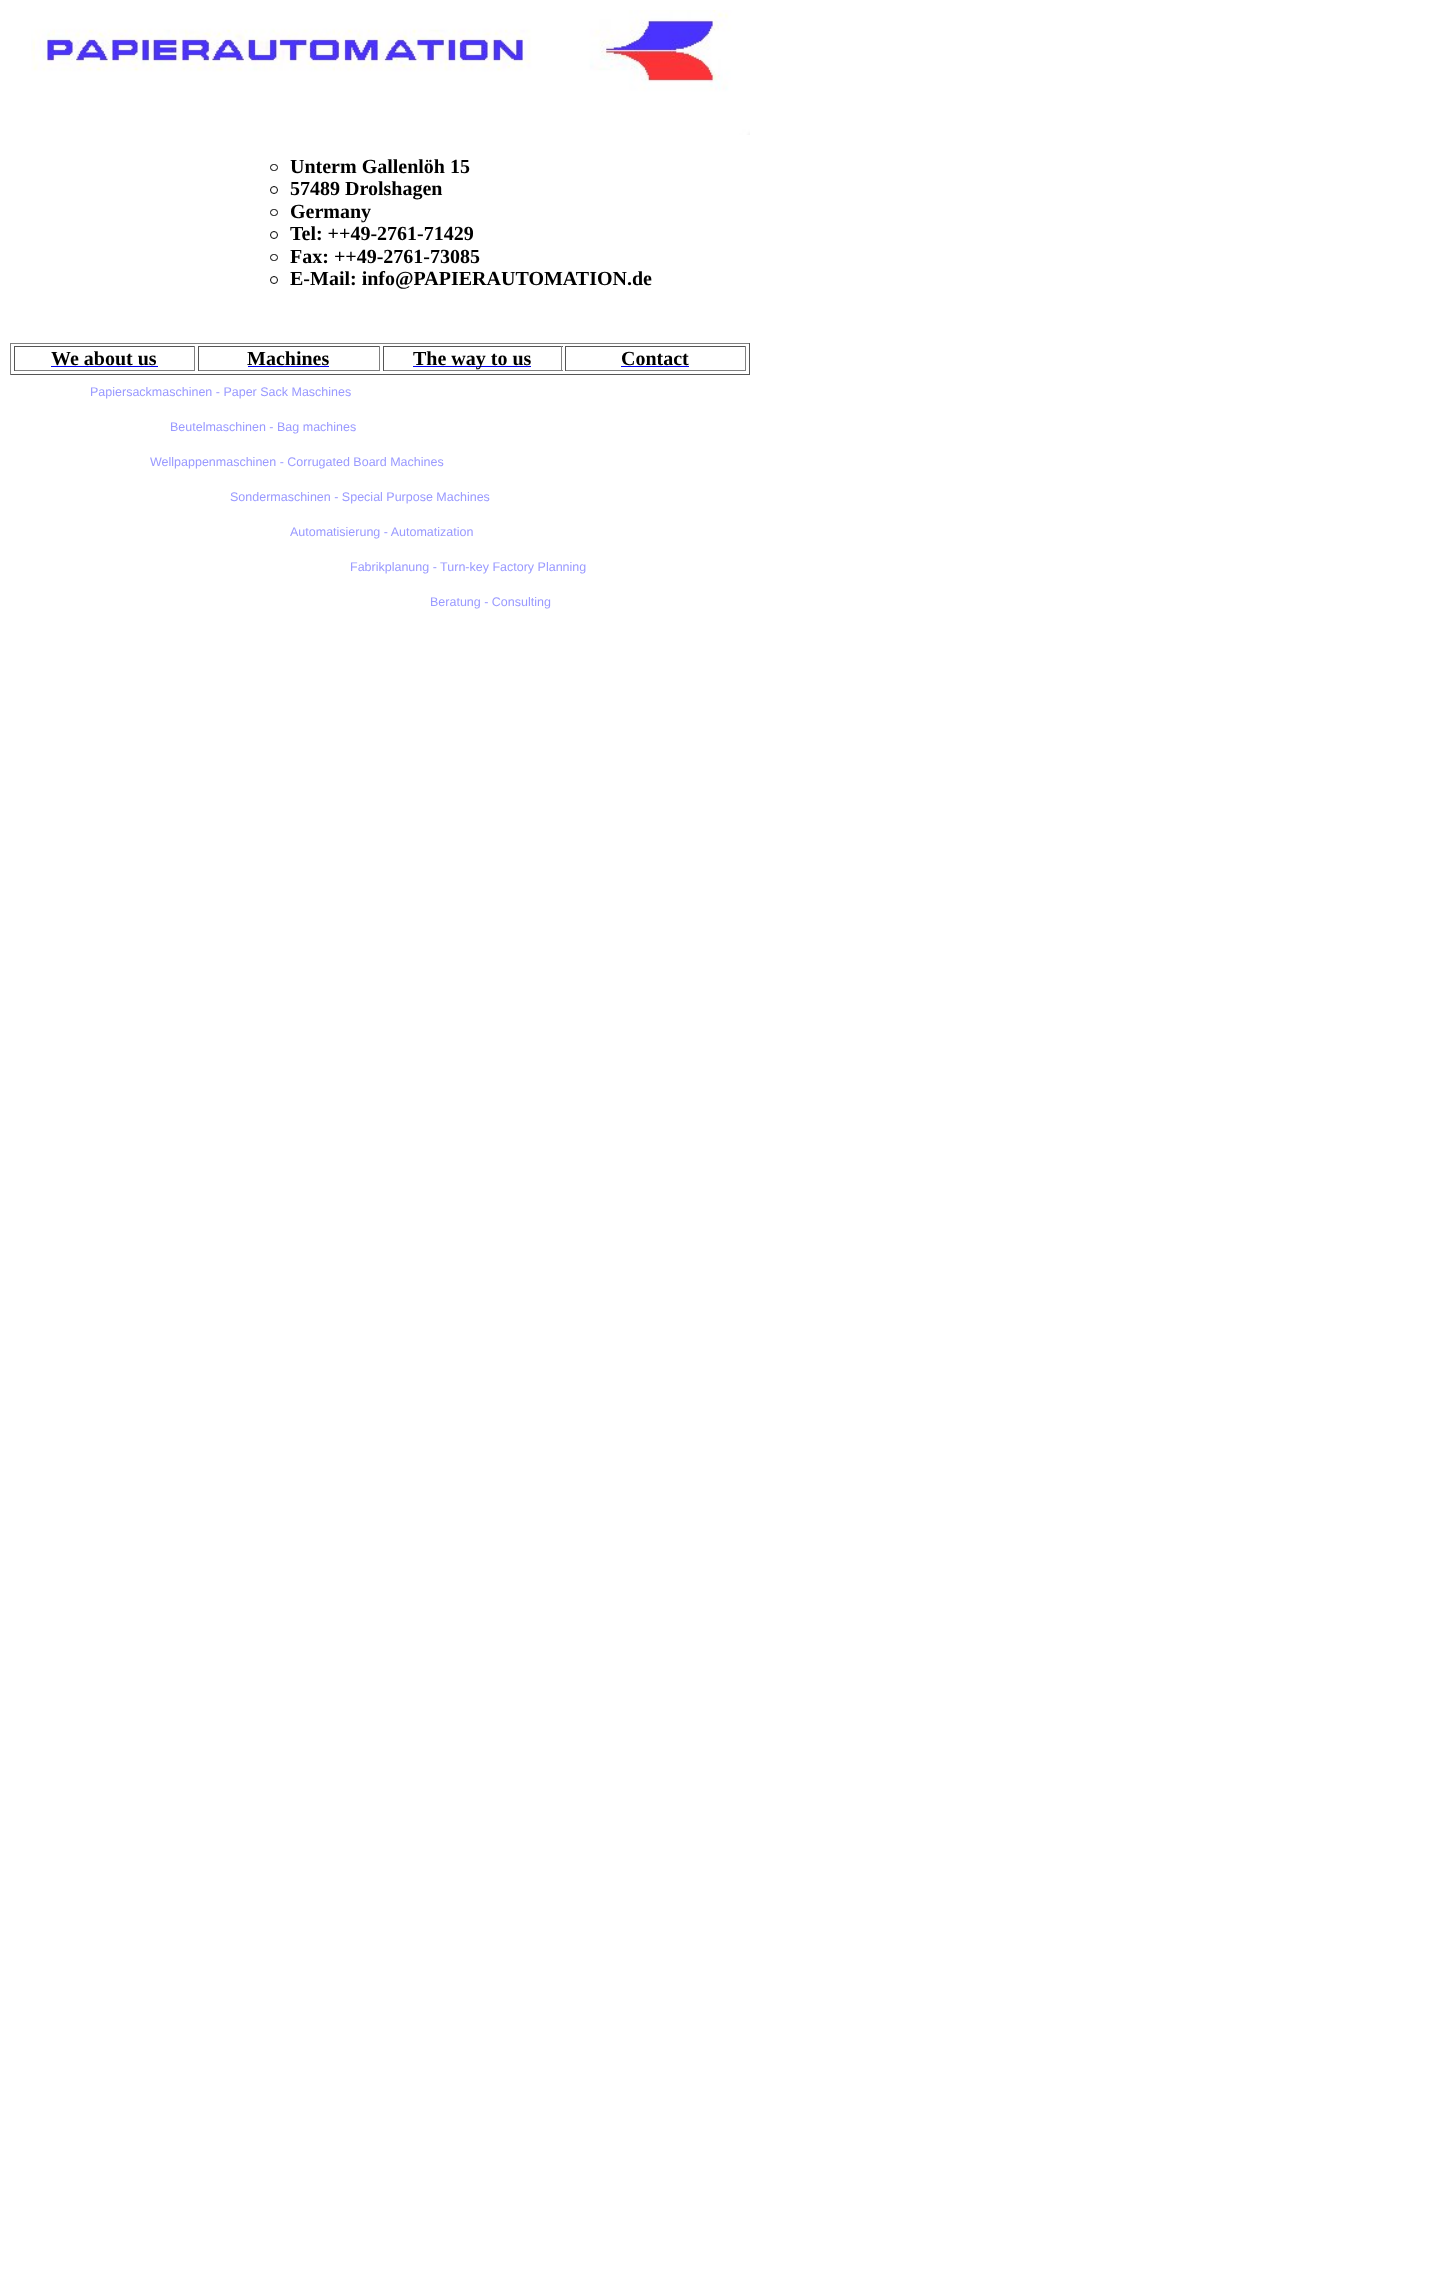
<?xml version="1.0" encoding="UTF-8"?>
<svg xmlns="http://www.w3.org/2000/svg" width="1432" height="2281">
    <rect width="100%" height="100%" fill="#FFFFFF"/>
    <image x="31" y="10" width="719" height="125" href="img_01.png"/>
    <rect x="270.5" y="164.5" width="7" height="6" rx="3" fill="none" stroke="#000000"/>
    <text x="290" y="173" font-family="Liberation Serif" font-size="20" font-weight="700" fill="#000000">Unterm Gallenlöh 15</text>
    <circle cx="274" cy="190" r="3.5" fill="none" stroke="#000000"/>
    <text x="290" y="195" font-family="Liberation Serif" font-size="20" font-weight="700" fill="#000000">57489 Drolshagen</text>
    <rect x="270.5" y="209.5" width="7" height="6" rx="3" fill="none" stroke="#000000"/>
    <text x="290" y="218" font-family="Liberation Serif" font-size="20" font-weight="700" fill="#000000">Germany</text>
    <circle cx="274" cy="235" r="3.5" fill="none" stroke="#000000"/>
    <text x="290" y="240" font-family="Liberation Serif" font-size="20" font-weight="700" fill="#000000">Tel: ++49-2761-71429</text>
    <rect x="270.5" y="254.5" width="7" height="6" rx="3" fill="none" stroke="#000000"/>
    <text x="290" y="263" font-family="Liberation Serif" font-size="20" font-weight="700" fill="#000000">Fax: ++49-2761-73085</text>
    <circle cx="274" cy="280" r="3.5" fill="none" stroke="#000000"/>
    <text x="290" y="285" font-family="Liberation Serif" font-size="20" font-weight="700" fill="#000000">E-Mail: info@PAPIERAUTOMATION.de</text>
    <rect x="10" y="343" width="740" height="1" fill="#808080"/>
    <rect x="749" y="343" width="1" height="32" fill="#555555"/>
    <rect x="10" y="374" width="740" height="1" fill="#555555"/>
    <rect x="10" y="343" width="1" height="32" fill="#808080"/>
    <rect x="14" y="346" width="181" height="1" fill="#555555"/>
    <rect x="194" y="346" width="1" height="25" fill="#808080"/>
    <rect x="14" y="370" width="181" height="1" fill="#808080"/>
    <rect x="14" y="346" width="1" height="25" fill="#555555"/>
    <text x="51" y="365" font-family="Liberation Serif" font-size="20" font-weight="700" fill="#000000">We about us</text>
    <rect x="51" y="366" width="107" height="1" fill="#0000EE"/>
    <rect x="198" y="346" width="182" height="1" fill="#555555"/>
    <rect x="379" y="346" width="1" height="25" fill="#808080"/>
    <rect x="198" y="370" width="182" height="1" fill="#808080"/>
    <rect x="198" y="346" width="1" height="25" fill="#555555"/>
    <text x="247" y="365" font-family="Liberation Serif" font-size="20" font-weight="700" fill="#000000">Machines</text>
    <rect x="248" y="366" width="81" height="1" fill="#0000EE"/>
    <rect x="383" y="346" width="180" height="1" fill="#555555"/>
    <rect x="561" y="346" width="1" height="25" fill="#808080"/>
    <rect x="383" y="370" width="180" height="1" fill="#808080"/>
    <rect x="383" y="346" width="1" height="25" fill="#555555"/>
    <rect x="413" y="366" width="118" height="1" fill="#0000EE"/>
    <text x="413" y="365" font-family="Liberation Serif" font-size="20" font-weight="700" fill="#000000">The way to us</text>
    <rect x="565" y="346" width="181" height="1" fill="#555555"/>
    <rect x="745" y="346" width="1" height="25" fill="#808080"/>
    <rect x="565" y="370" width="181" height="1" fill="#808080"/>
    <rect x="565" y="346" width="1" height="25" fill="#555555"/>
    <text x="621" y="365" font-family="Liberation Serif" font-size="20" font-weight="700" fill="#000000">Contact</text>
    <rect x="621" y="366" width="68" height="1" fill="#0000EE"/>
    <text x="90" y="396" font-family="Liberation Sans" font-size="12.5" fill="#9A9AFF">Papiersackmaschinen - Paper Sack Maschines</text>
    <text x="170" y="431" font-family="Liberation Sans" font-size="12.5" fill="#9A9AFF">Beutelmaschinen - Bag machines</text>
    <text x="150" y="466" font-family="Liberation Sans" font-size="12.5" fill="#9A9AFF">Wellpappenmaschinen - Corrugated Board Machines</text>
    <text x="230" y="501" font-family="Liberation Sans" font-size="12.5" fill="#9A9AFF">Sondermaschinen - Special Purpose Machines</text>
    <text x="290" y="536" font-family="Liberation Sans" font-size="12.5" fill="#9A9AFF">Automatisierung - Automatization</text>
    <text x="350" y="571" font-family="Liberation Sans" font-size="12.5" fill="#9A9AFF">Fabrikplanung - Turn-key Factory Planning</text>
    <text x="430" y="606" font-family="Liberation Sans" font-size="12.5" fill="#9A9AFF">Beratung - Consulting</text>
</svg>
